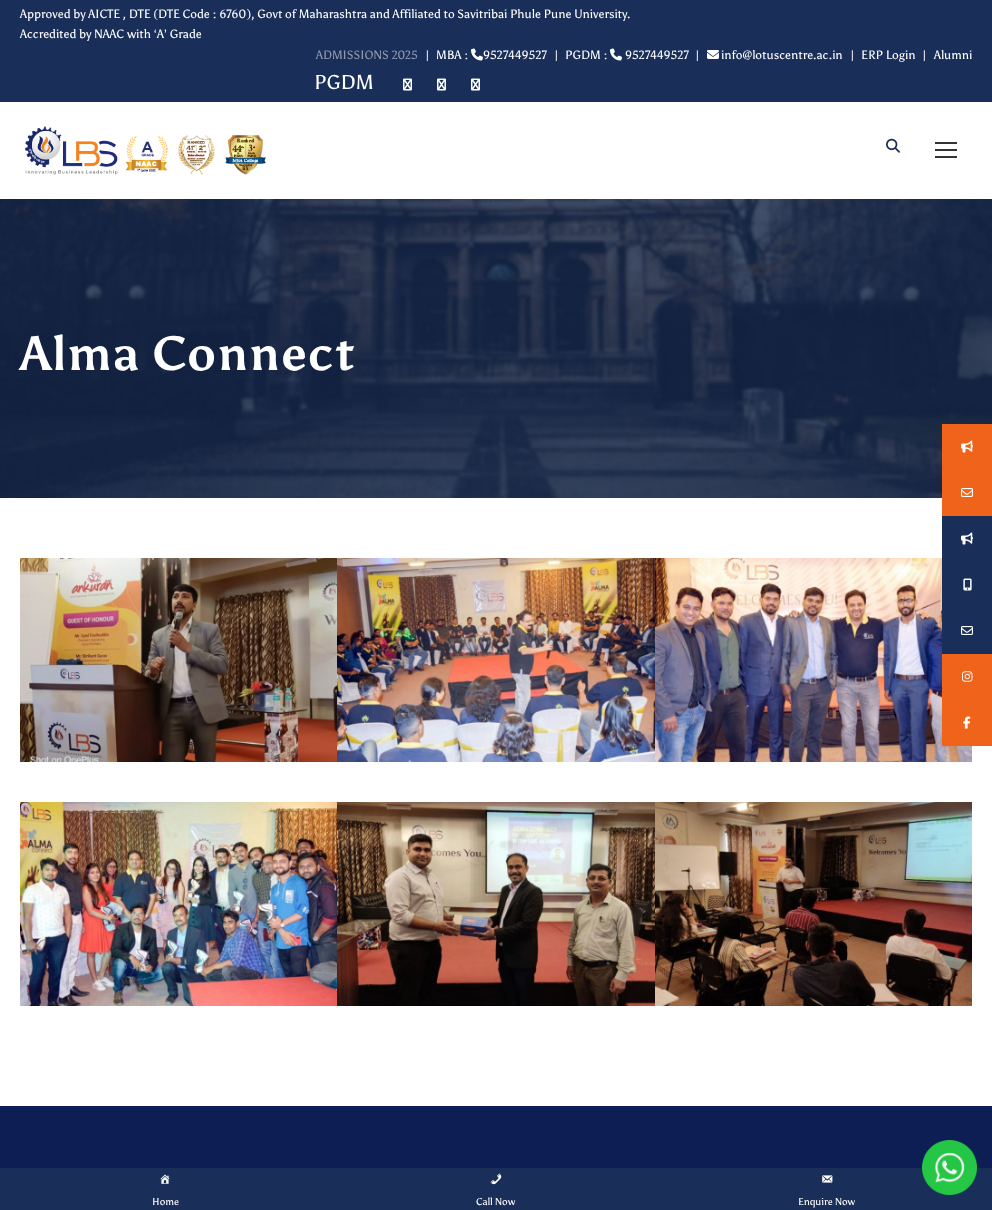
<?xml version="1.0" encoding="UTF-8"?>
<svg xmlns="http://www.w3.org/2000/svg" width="992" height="1210">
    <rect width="100%" height="100%" fill="#FFFFFF"/>
    <rect x="0" y="0" width="992" height="102" fill="#192F59"/>
    <text font-family="Asul" font-size="12" fill="#FFFFFF">
        <tspan x="20" y="18">Approved by AICTE , DTE (DTE Code : 6760), Govt of Maharashtra and Affiliated to Savitribai Phule Pune University.</tspan>
        <tspan x="20" y="38">Accredited by NAAC with ‘A’ Grade</tspan>
    </text>
    <text x="316" y="59" font-family="Asul" font-size="12" fill="#919BAD">ADMISSIONS 2025</text>
    <text x="426" y="59" font-family="Asul" font-size="12" fill="#FFFFFF">|</text>
    <text x="436" y="59" font-family="Asul" font-size="12" fill="#FFFFFF">MBA :</text>
    <image x="471" y="48" width="12" height="13" href="img_01.png"/>
    <text x="483" y="59" font-family="Asul" font-size="12" fill="#FFFFFF">9527449527</text>
    <text x="555" y="59" font-family="Asul" font-size="12" fill="#FFFFFF">|</text>
    <text x="565" y="59" font-family="Asul" font-size="12" fill="#FFFFFF">PGDM :</text>
    <image x="610" y="48" width="12" height="13" href="img_01.png"/>
    <text x="625" y="59" font-family="Asul" font-size="12" fill="#FFFFFF">9527449527</text>
    <text x="696" y="59" font-family="Asul" font-size="12" fill="#FFFFFF">|</text>
    <image x="707" y="50" width="12" height="9" href="img_02.png"/>
    <text x="721" y="59" font-family="Asul" font-size="12" fill="#FFFFFF">info@lotuscentre.ac.in</text>
    <text x="851" y="59" font-family="Asul" font-size="12" fill="#FFFFFF">|</text>
    <text x="861" y="59" font-family="Asul" font-size="12" fill="#FFFFFF">ERP Login</text>
    <text x="923" y="59" font-family="Asul" font-size="12" fill="#FFFFFF">|</text>
    <text x="934" y="59" font-family="Asul" font-size="12" fill="#FFFFFF">Alumni</text>
    <text x="314" y="89" font-family="Asul" font-size="20" fill="#FFFFFF">PGDM</text>
    <image x="403" y="78" width="9" height="13" href="img_03.png"/>
    <image x="437" y="78" width="9" height="13" href="img_03.png"/>
    <image x="471" y="78" width="9" height="13" href="img_03.png"/>
    <image x="25" y="126" width="241" height="49" href="img_04.png"/>
    <image x="886" y="138" width="14" height="15" href="img_05.png"/>
    <rect x="935" y="142" width="22" height="2" fill="#333333"/>
    <rect x="935" y="149" width="22" height="2" fill="#333333"/>
    <rect x="935" y="156" width="22" height="2" fill="#333333"/>
    <image x="0" y="199" width="992" height="299" href="img_06.png"/>
    <text x="20" y="370" font-family="Asul" font-size="48" font-weight="700" letter-spacing="1" fill="#FFFFFF">Alma Connect</text>
    <image x="20" y="558" width="317" height="204" href="img_07.png"/>
    <image x="337" y="558" width="318" height="204" href="img_08.png"/>
    <image x="655" y="558" width="317" height="204" href="img_09.png"/>
    <image x="20" y="802" width="317" height="204" href="img_10.png"/>
    <image x="337" y="802" width="318" height="204" href="img_11.png"/>
    <image x="655" y="802" width="317" height="204" href="img_12.png"/>
    <rect x="0" y="1106" width="992" height="62" fill="#0C1E53"/>
    <rect x="942" y="424" width="50" height="92" fill="#EF631A"/>
    <image x="961" y="440" width="12" height="13" href="img_13.png"/>
    <image x="961" y="488" width="12" height="9" href="img_14.png"/>
    <rect x="942" y="516" width="50" height="138" fill="#192F59"/>
    <image x="961" y="532" width="12" height="13" href="img_15.png"/>
    <image x="963" y="578" width="9" height="13" href="img_16.png"/>
    <image x="961" y="626" width="12" height="9" href="img_17.png"/>
    <rect x="942" y="654" width="50" height="92" fill="#EF631A"/>
    <image x="962" y="671" width="11" height="11" href="img_18.png"/>
    <image x="963" y="716" width="8" height="13" href="img_19.png"/>
    <rect x="0" y="1168" width="992" height="42" fill="#192F59"/>
    <image x="922" y="1140" width="55" height="55" href="img_20.png"/>
    <image x="160" y="1174" width="10" height="10" href="img_21.png"/>
    <text x="152" y="1205" font-family="Asul" font-size="10" fill="#FFFFFF">Home</text>
    <image x="490" y="1173" width="12" height="12" href="img_22.png"/>
    <text x="476" y="1205" font-family="Asul" font-size="10" fill="#FFFFFF">Call Now</text>
    <image x="822" y="1175" width="11" height="8" href="img_23.png"/>
    <text x="798" y="1205" font-family="Asul" font-size="10" fill="#FFFFFF">Enquire Now</text>
</svg>
